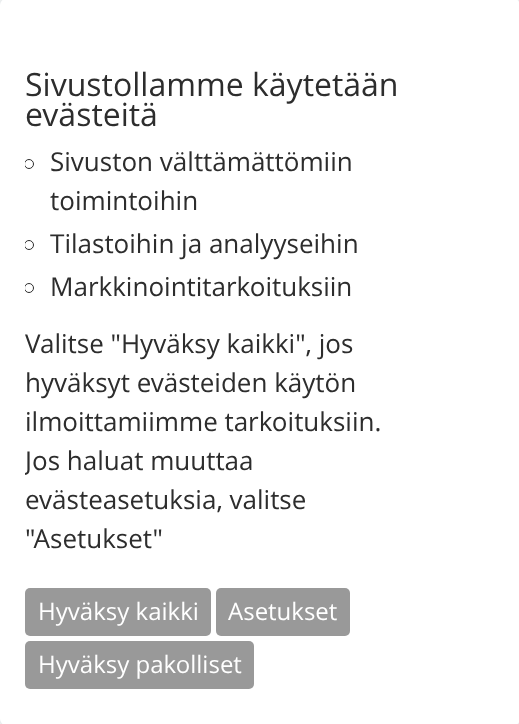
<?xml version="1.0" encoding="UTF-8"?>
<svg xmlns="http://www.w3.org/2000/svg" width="519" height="724">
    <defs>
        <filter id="blur1" x="-50%" y="-200%" width="200%" height="500%"><feGaussianBlur stdDeviation="6"/></filter>
        <clipPath id="clip1"><rect x="25" y="143" width="470" height="445"/></clipPath>
    </defs>
    <rect width="100%" height="100%" fill="#FFFFFF"/>
    <rect x="0" y="-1" width="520" height="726" rx="6" fill="#547478" fill-opacity="0.4" filter="url(#blur1)"/>
    <rect x="0" y="-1" width="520" height="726" rx="6" fill="#FFFFFF"/>
    <text font-family="Open Sans" font-size="32" fill="#2D2D2D">
        <tspan x="25" y="96">Sivustollamme käytetään</tspan>
        <tspan x="25" y="126">evästeitä</tspan>
    </text>
    <g clip-path="url(#clip1)">
        <circle cx="29" cy="164" r="4.5" fill="none" stroke="#2D2D2D"/>
    </g>
    <text font-family="Open Sans" font-size="26" fill="#2D2D2D">
        <tspan x="50" y="171">Sivuston välttämättömiin</tspan>
        <tspan x="50" y="210">toimintoihin</tspan>
    </text>
    <g clip-path="url(#clip1)">
        <circle cx="29" cy="245" r="4.5" fill="none" stroke="#2D2D2D"/>
    </g>
    <text x="50" y="253" font-family="Open Sans" font-size="26" fill="#2D2D2D">Tilastoihin ja analyyseihin</text>
    <g clip-path="url(#clip1)">
        <circle cx="29" cy="288" r="4.5" fill="none" stroke="#2D2D2D"/>
    </g>
    <text x="50" y="296" font-family="Open Sans" font-size="26" fill="#2D2D2D">Markkinointitarkoituksiin</text>
    <text font-family="Open Sans" font-size="26" fill="#2D2D2D">
        <tspan x="25" y="353">Valitse "Hyväksy kaikki", jos</tspan>
        <tspan x="25" y="392">hyväksyt evästeiden käytön</tspan>
        <tspan x="25" y="431">ilmoittamiimme tarkoituksiin.</tspan>
    </text>
    <g clip-path="url(#clip1)">
        <text x="25" y="470" font-family="Open Sans" font-size="26" fill="#2D2D2D">Jos haluat muuttaa</text>
    </g>
    <text font-family="Open Sans" font-size="26" fill="#2D2D2D">
        <tspan x="25" y="509">evästeasetuksia, valitse</tspan>
        <tspan x="25" y="548">"Asetukset"</tspan>
    </text>
    <rect x="25" y="588" width="186" height="48" rx="5" fill="#999999"/>
    <text x="38" y="620" font-family="Open Sans" font-size="24" fill="#FFFFFF">Hyväksy kaikki</text>
    <rect x="216" y="588" width="134" height="48" rx="5" fill="#999999"/>
    <text x="228" y="620" font-family="Open Sans" font-size="24" fill="#FFFFFF">Asetukset</text>
    <rect x="25" y="641" width="229" height="48" rx="5" fill="#999999"/>
    <text x="38" y="673" font-family="Open Sans" font-size="24" fill="#FFFFFF">Hyväksy pakolliset</text>
</svg>
